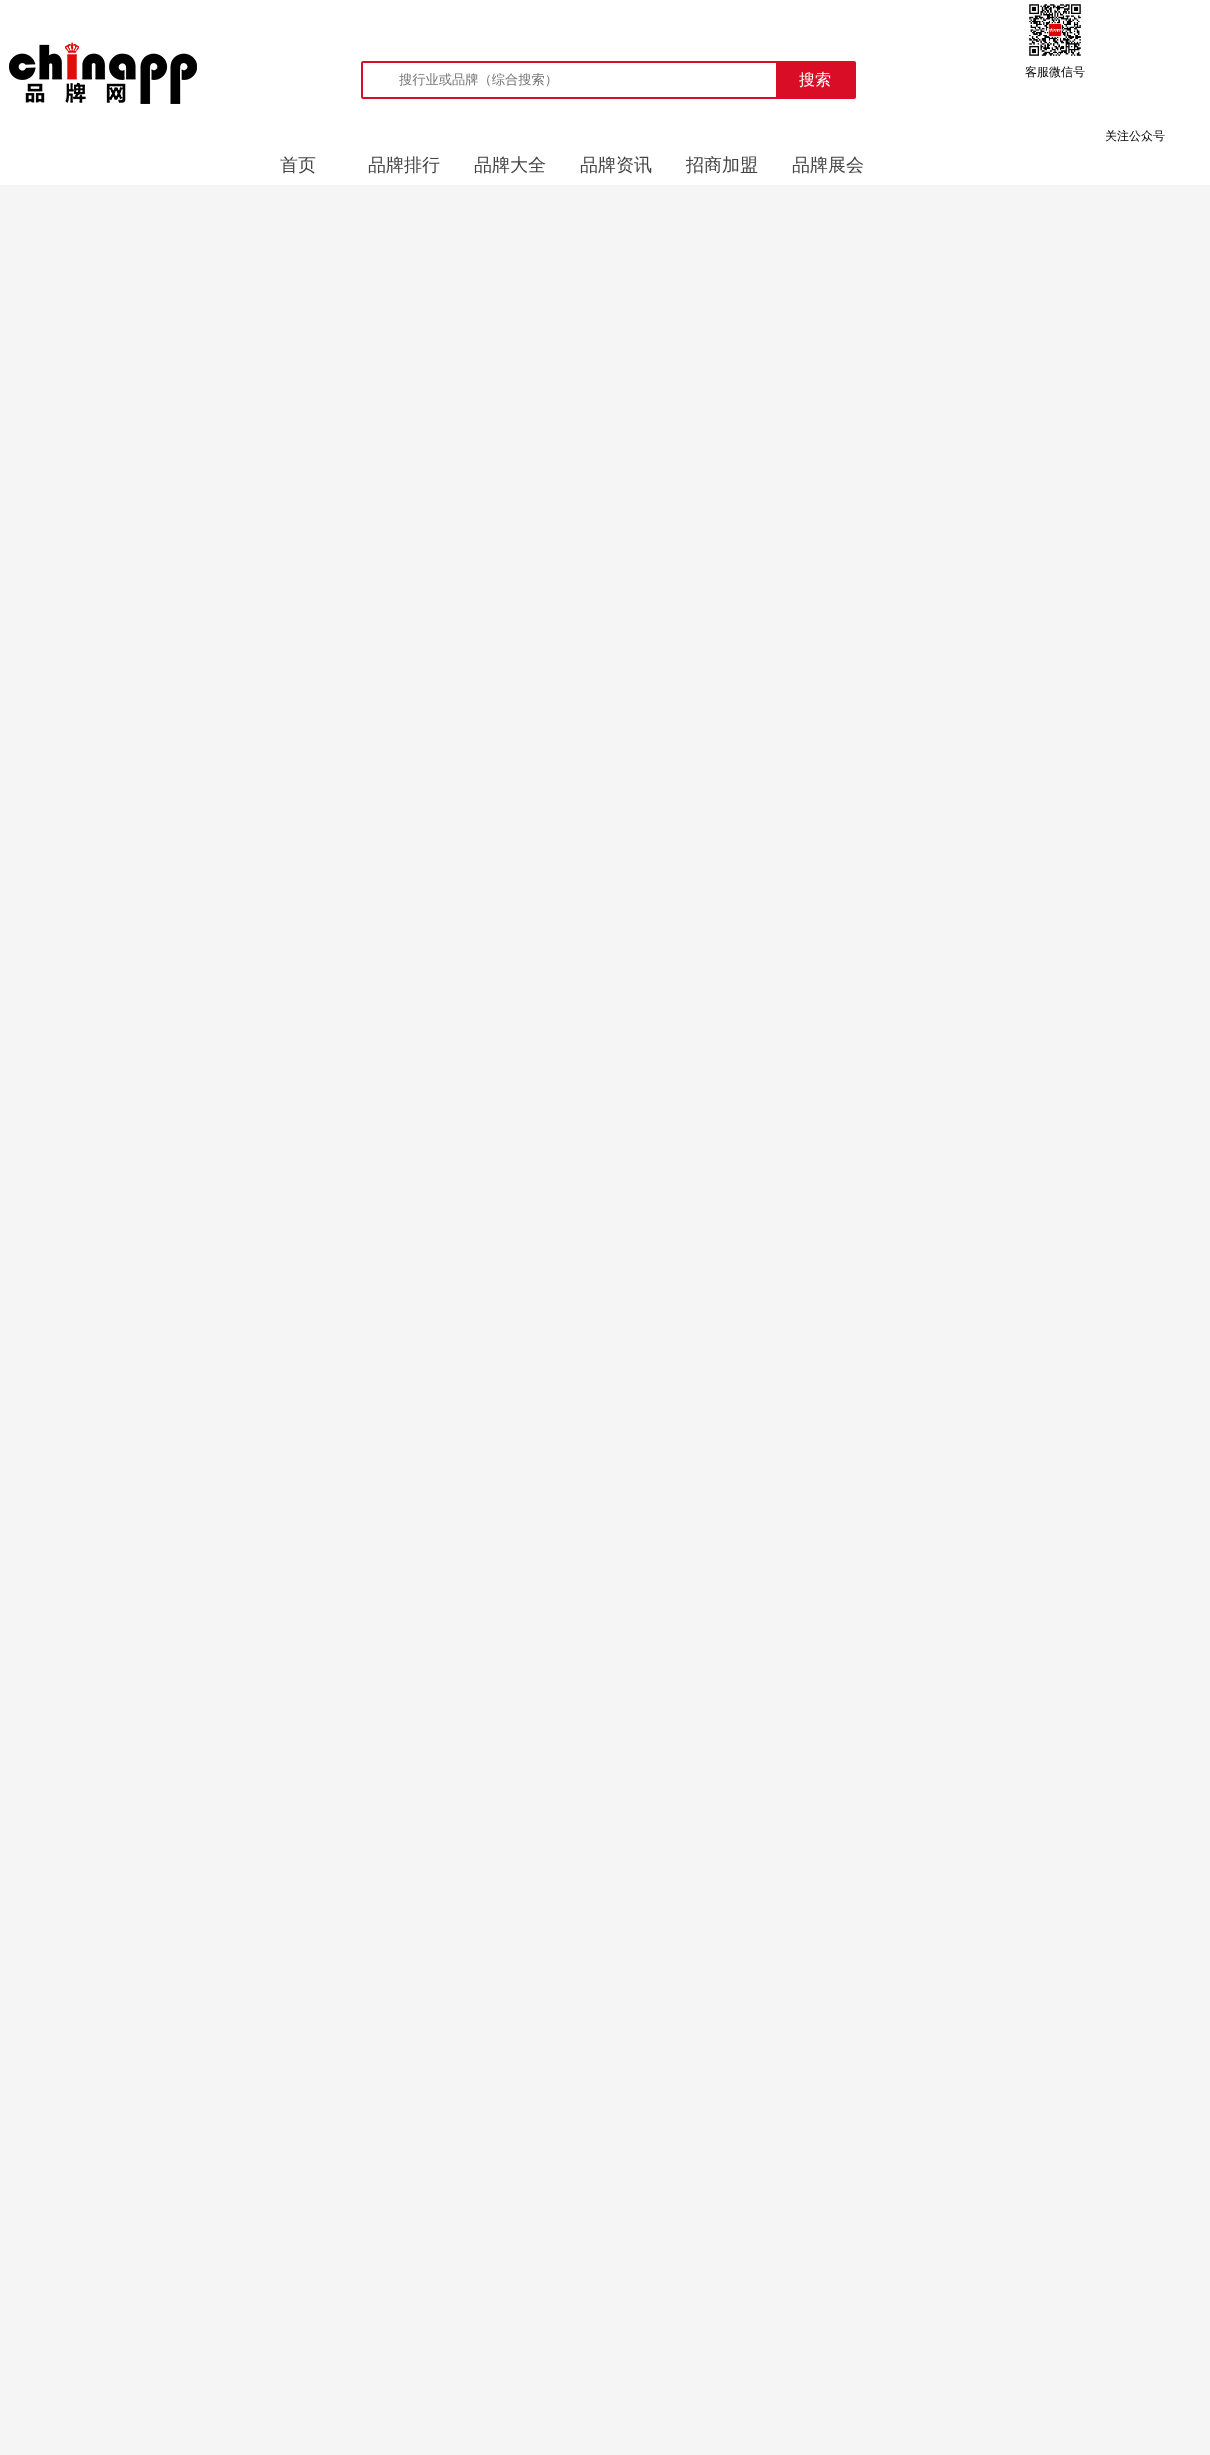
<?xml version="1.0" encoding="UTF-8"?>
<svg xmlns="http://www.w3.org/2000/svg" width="1210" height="2455">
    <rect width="100%" height="100%" fill="#F5F5F5"/>
    <rect x="0" y="0" width="1210" height="185" fill="#FFFFFF"/>
    <image x="9" y="42" width="188" height="62" href="img_01.png"/>
    <rect x="362" y="62" width="493" height="36" rx="1" fill="none" stroke="#D90D26" stroke-width="2"/>
    <text x="399" y="84" font-family="WenQuanYi Zen Hei" font-size="13.25" font-weight="500" fill="#757575">搜行业或品牌（综合搜索）</text>
    <rect x="776" y="63" width="78" height="34" fill="#D90D26"/>
    <text x="799" y="85" font-family="WenQuanYi Zen Hei" font-size="16" font-weight="500" fill="#FFFFFF">搜索</text>
    <image x="1029" y="4" width="52" height="52" href="img_02.png"/>
    <text x="1025" y="76" font-family="WenQuanYi Zen Hei" font-size="12" font-weight="500" fill="#000000">客服微信号</text>
    <text x="1105" y="140" font-family="WenQuanYi Zen Hei" font-size="12" font-weight="500" fill="#000000">关注公众号</text>
    <text x="280" y="171" font-family="WenQuanYi Zen Hei" font-size="18" font-weight="500" fill="#444444">首页</text>
    <text x="368" y="171" font-family="WenQuanYi Zen Hei" font-size="18" font-weight="500" fill="#444444">品牌排行</text>
    <text x="474" y="171" font-family="WenQuanYi Zen Hei" font-size="18" font-weight="500" fill="#444444">品牌大全</text>
    <text x="580" y="171" font-family="WenQuanYi Zen Hei" font-size="18" font-weight="500" fill="#444444">品牌资讯</text>
    <text x="686" y="171" font-family="WenQuanYi Zen Hei" font-size="18" font-weight="500" fill="#444444">招商加盟</text>
    <text x="792" y="171" font-family="WenQuanYi Zen Hei" font-size="18" font-weight="500" fill="#444444">品牌展会</text>
</svg>
